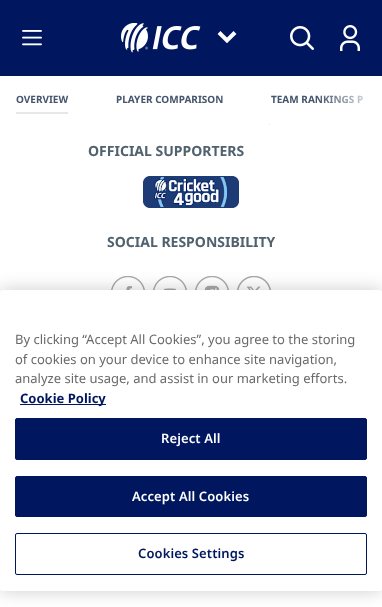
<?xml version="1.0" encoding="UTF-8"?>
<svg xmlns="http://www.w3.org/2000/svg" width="382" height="607">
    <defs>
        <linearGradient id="g1" gradientUnits="userSpaceOnUse" x1="318" y1="100" x2="382" y2="100"><stop offset="0" stop-color="#FFFFFF" stop-opacity="0"/><stop offset="1" stop-color="#FFFFFF"/></linearGradient>
        <filter id="blur1" x="-50%" y="-200%" width="200%" height="500%"><feGaussianBlur stdDeviation="9"/></filter>
    </defs>
    <rect width="100%" height="100%" fill="#FFFFFF"/>
    <rect x="0" y="0" width="382" height="76" fill="#00175F"/>
    <image x="22" y="30" width="20" height="16" href="img_01.png"/>
    <image x="121" y="23" width="80" height="30" href="img_02.png"/>
    <path d="M 235 32.5 L 227 40.5 L 219 32.5" fill="none" stroke="#FFFFFF" stroke-width="4"/>
    <image x="290" y="26" width="24" height="24" href="img_03.png"/>
    <image x="340" y="25" width="20" height="26" href="img_04.png"/>
    <text x="16" y="103" font-family="Noto Sans" font-size="10" font-weight="700" fill="#45556C">OVERVIEW</text>
    <rect x="16" y="112" width="52" height="2" fill="#E5E7EB"/>
    <text x="116" y="103" font-family="Noto Sans" font-size="10" font-weight="700" fill="#45556C">PLAYER COMPARISON</text>
    <text x="271" y="103" font-family="Noto Sans" font-size="10" font-weight="700" fill="#45556C">TEAM RANKINGS P</text>
    <rect x="319" y="95" width="45" height="9" fill="url(#g1)"/>
    <rect x="269" y="124" width="1" height="1" fill="#E6E6E6"/>
    <text x="88" y="156" font-family="Noto Sans" font-size="14" font-weight="700" fill="#51626F">OFFICIAL SUPPORTERS</text>
    <image x="143" y="176" width="96" height="32" href="img_05.png"/>
    <text x="107" y="247" font-family="Noto Sans" font-size="14" font-weight="700" fill="#51626F">SOCIAL RESPONSIBILITY</text>
    <image x="111" y="276" width="34" height="14" href="img_06.png"/>
    <image x="153" y="276" width="34" height="14" href="img_07.png"/>
    <image x="195" y="276" width="34" height="14" href="img_08.png"/>
    <image x="237" y="276" width="34" height="14" href="img_09.png"/>
    <rect x="0" y="290" width="382" height="301" rx="2.5" fill="#000000" fill-opacity="0.2" filter="url(#blur1)"/>
    <rect x="0" y="290" width="382" height="301" rx="2.5" fill="#FFFFFF"/>
    <text font-family="Noto Sans" font-size="13" fill="#696969">
        <tspan x="15" y="344">By clicking “Accept All Cookies”, you agree to the storing</tspan>
        <tspan x="15" y="364">of cookies on your device to enhance site navigation,</tspan>
        <tspan x="15" y="383">analyze site usage, and assist in our marketing efforts.</tspan>
    </text>
    <rect x="20" y="404" width="86" height="1" fill="#00175F"/>
    <text x="20" y="403" font-family="Noto Sans" font-size="13" font-weight="700" fill="#00175F">Cookie Policy</text>
    <rect x="15.5" y="418.5" width="351" height="41" rx="1.5" fill="#00175F" stroke="#00175F"/>
    <text x="161" y="443" font-family="Noto Sans" font-size="13" font-weight="600" letter-spacing="0.1" fill="#FFFFFF">Reject All</text>
    <rect x="15.5" y="476.5" width="351" height="40" rx="1.5" fill="#00175F" stroke="#00175F"/>
    <text x="132" y="501" font-family="Noto Sans" font-size="13" font-weight="600" letter-spacing="0.1" fill="#FFFFFF">Accept All Cookies</text>
    <rect x="15.5" y="533.5" width="351" height="41" rx="1.5" fill="none" stroke="#00175F"/>
    <text x="138" y="558" font-family="Noto Sans" font-size="13" font-weight="600" letter-spacing="0.1" fill="#00175F">Cookies Settings</text>
</svg>
